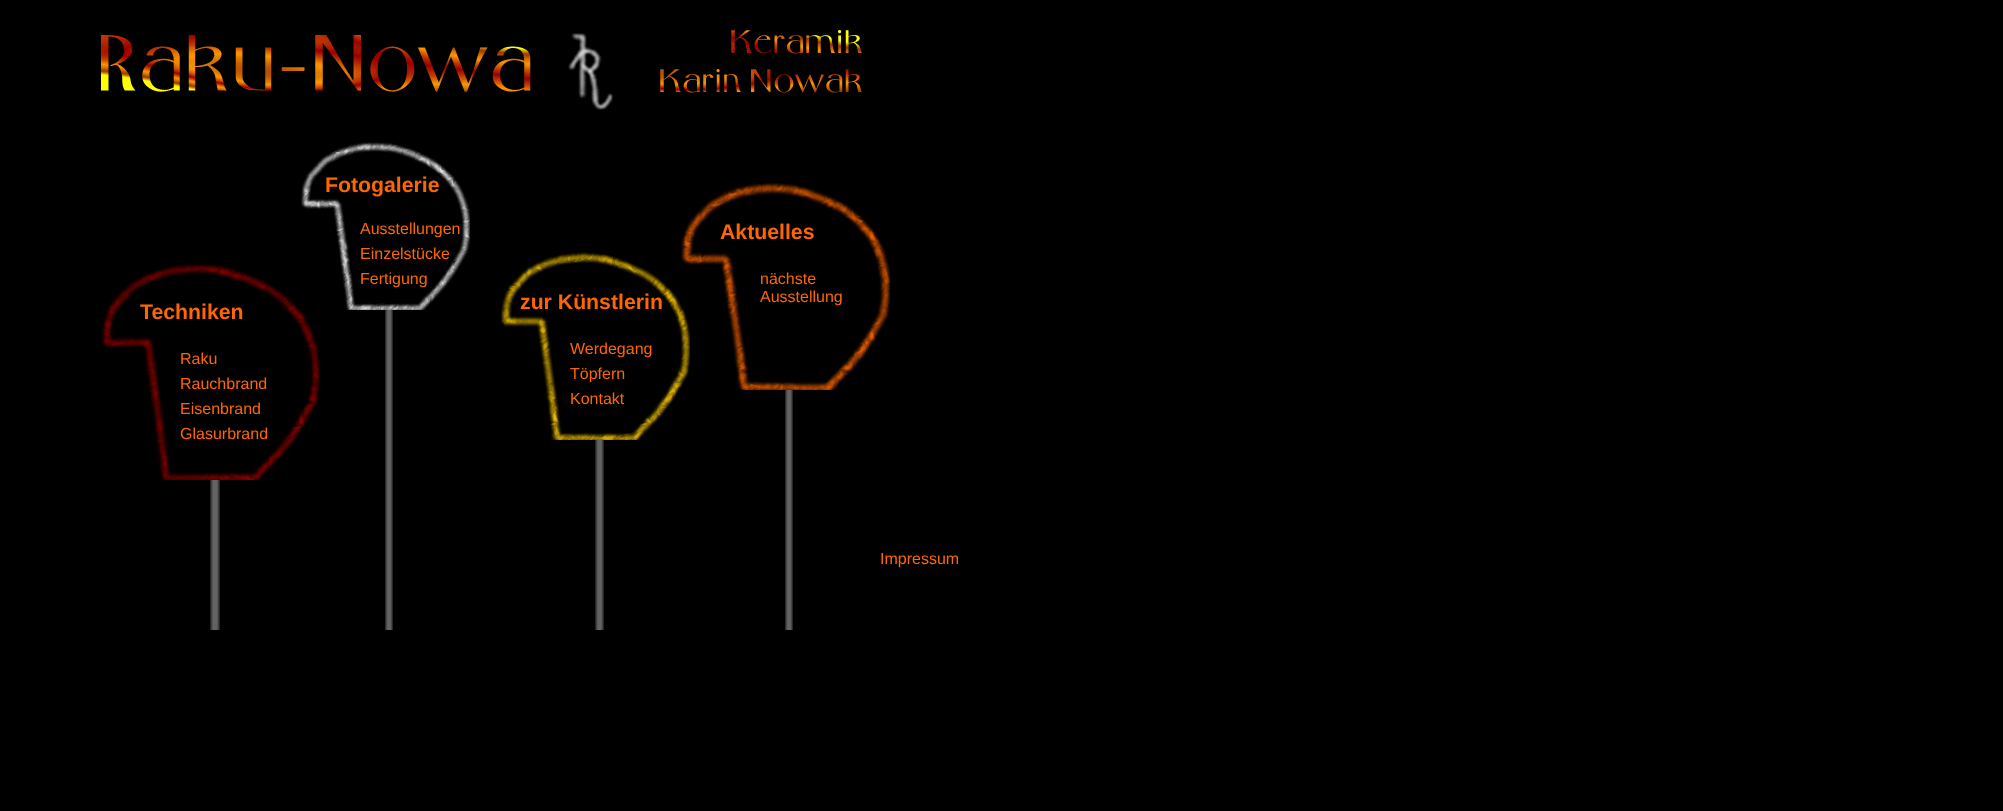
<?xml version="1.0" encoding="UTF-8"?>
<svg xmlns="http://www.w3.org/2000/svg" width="2003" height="811">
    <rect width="100%" height="100%" fill="#000000"/>
    <image x="101" y="35" width="430" height="57" href="img_01.png"/>
    <image x="568" y="33" width="46" height="77" href="img_02.png"/>
    <image x="660" y="30" width="202" height="63" href="img_03.png"/>
    <image x="101" y="263" width="219" height="217" href="img_06.png"/>
    <image x="301" y="142" width="169" height="168" href="img_04.png"/>
    <text x="325" y="192" font-family="Liberation Sans" font-size="21.25" font-weight="700" fill="#FF6600">Fotogalerie</text>
    <image x="500" y="252" width="190" height="188" href="img_07.png"/>
    <image x="681" y="182" width="209" height="208" href="img_05.png"/>
    <text x="360" y="234" font-family="Liberation Sans" font-size="16" fill="#FF6600">Ausstellungen</text>
    <text x="720" y="239" font-family="Liberation Sans" font-size="21.25" font-weight="700" fill="#FF6600">Aktuelles</text>
    <text x="360" y="259" font-family="Liberation Sans" font-size="16" fill="#FF6600">Einzelstücke</text>
    <text x="140" y="319" font-family="Liberation Sans" font-size="21.25" font-weight="700" fill="#FF6600">Techniken</text>
    <text x="360" y="284" font-family="Liberation Sans" font-size="16" fill="#FF6600">Fertigung</text>
    <text x="520" y="309" font-family="Liberation Sans" font-size="21.25" font-weight="700" fill="#FF6600">zur Künstlerin</text>
    <text font-family="Liberation Sans" font-size="16" fill="#FF6600">
        <tspan x="760" y="284">nächste</tspan>
        <tspan x="760" y="302">Ausstellung</tspan>
    </text>
    <text x="180" y="364" font-family="Liberation Sans" font-size="16" fill="#FF6600">Raku</text>
    <image x="385" y="310" width="8" height="320" href="img_08.png"/>
    <text x="570" y="354" font-family="Liberation Sans" font-size="16" fill="#FF6600">Werdegang</text>
    <text x="180" y="389" font-family="Liberation Sans" font-size="16" fill="#FF6600">Rauchbrand</text>
    <text font-family="Liberation Sans" font-size="16" fill="#FF6600">
        <tspan x="570" y="379">Töpfern</tspan>
        <tspan x="570" y="404">Kontakt</tspan>
    </text>
    <image x="785" y="390" width="8" height="240" href="img_09.png"/>
    <text font-family="Liberation Sans" font-size="16" fill="#FF6600">
        <tspan x="180" y="414">Eisenbrand</tspan>
        <tspan x="180" y="439">Glasurbrand</tspan>
    </text>
    <image x="210" y="480" width="10" height="150" href="img_10.png"/>
    <image x="595" y="440" width="9" height="190" href="img_11.png"/>
    <text x="880" y="564" font-family="Liberation Sans" font-size="16" fill="#FF6600">Impressum</text>
</svg>
